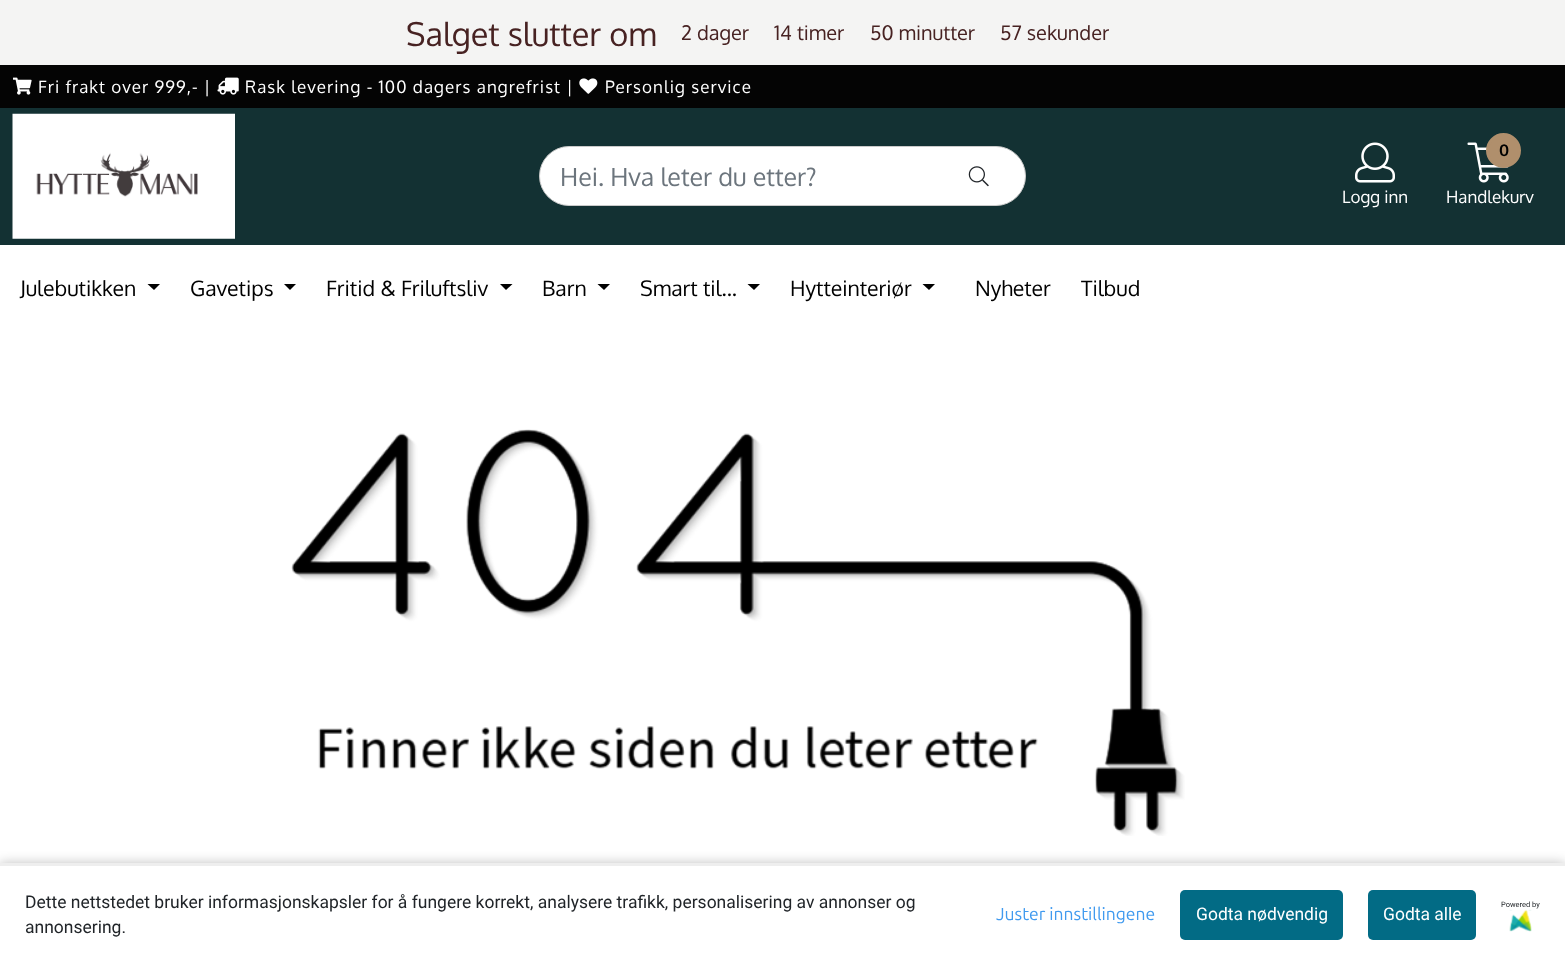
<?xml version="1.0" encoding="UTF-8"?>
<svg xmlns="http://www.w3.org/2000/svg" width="1565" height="964">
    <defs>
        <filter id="blur1" x="-50%" y="-200%" width="200%" height="500%"><feGaussianBlur stdDeviation="6"/></filter>
    </defs>
    <rect width="100%" height="100%" fill="#FFFFFF"/>
    <rect x="0" y="0" width="1565" height="65" fill="#F4F4F3"/>
    <text x="406" y="46" font-family="Oxygen" font-size="32.5" fill="#472222">Salget slutter om</text>
    <text x="681" y="40" font-family="Oxygen" font-size="20" fill="#472222">2 dager</text>
    <text x="774" y="40" font-family="Oxygen" font-size="20" fill="#472222">14 timer</text>
    <text x="870" y="40" font-family="Oxygen" font-size="20" fill="#472222">50 minutter</text>
    <text x="1000" y="40" font-family="Oxygen" font-size="20" fill="#472222">57 sekunder</text>
    <rect x="0" y="65" width="1565" height="43" fill="#040404"/>
    <image x="13" y="77" width="19" height="18" href="img_01.png"/>
    <text x="38" y="93" font-family="Oxygen" font-size="17" letter-spacing="1.05" fill="#FFFFFF">Fri frakt over 999,- |</text>
    <image x="217" y="77" width="22" height="18" href="img_02.png"/>
    <text x="245" y="93" font-family="Oxygen" font-size="17" letter-spacing="1.05" fill="#FFFFFF">Rask levering - 100 dagers angrefrist |</text>
    <image x="579" y="78" width="19" height="16" href="img_03.png"/>
    <text x="605" y="93" font-family="Oxygen" font-size="17" letter-spacing="1.05" fill="#FFFFFF">Personlig service</text>
    <rect x="0" y="108" width="1565" height="137" fill="#133133"/>
    <image x="12" y="113" width="223" height="126" href="img_04.png"/>
    <rect x="539.5" y="146.5" width="486" height="59" rx="29.5" fill="#FFFFFF" stroke="#CACACA"/>
    <text x="560" y="186" font-family="Oxygen" font-size="25" fill="#6C757D">Hei. Hva leter du etter?</text>
    <image x="968" y="166" width="21" height="21" href="img_05.png"/>
    <image x="1355" y="142" width="40" height="41" href="img_06.png"/>
    <text x="1342" y="203" font-family="Oxygen" font-size="17" fill="#FFFFFF">Logg inn</text>
    <image x="1467" y="142" width="42" height="41" href="img_07.png"/>
    <circle cx="1503.5" cy="150.5" r="16" fill="#B08F6C" stroke="#B08F6C" stroke-width="3"/>
    <text x="1499" y="156" font-family="Oxygen" font-size="16" font-weight="700" fill="#000000">0</text>
    <text x="1446" y="203" font-family="Oxygen" font-size="17" fill="#FFFFFF">Handlekurv</text>
    <text x="20" y="296" font-family="Oxygen" font-size="21.25" fill="#000000">Julebutikken</text>
    <path d="M 147.5 284 H 160 L 154 290 Z" fill="#000000"/>
    <text x="190" y="296" font-family="Oxygen" font-size="21.25" fill="#000000">Gavetips</text>
    <path d="M 284 284 H 296 L 290 290 Z" fill="#000000"/>
    <text x="326" y="296" font-family="Oxygen" font-size="21.25" fill="#000000">Fritid &amp; Friluftsliv</text>
    <path d="M 500 284 H 512.5 L 506 290 Z" fill="#000000"/>
    <text x="542" y="296" font-family="Oxygen" font-size="21.25" fill="#000000">Barn</text>
    <path d="M 597.5 284 H 610 L 604 290 Z" fill="#000000"/>
    <text x="640" y="296" font-family="Oxygen" font-size="21.25" fill="#000000">Smart til...</text>
    <path d="M 747.5 284 H 760 L 754 290 Z" fill="#000000"/>
    <text x="790" y="296" font-family="Oxygen" font-size="21.25" fill="#000000">Hytteinteriør</text>
    <path d="M 922.5 284 H 935 L 929 290 Z" fill="#000000"/>
    <text x="975" y="296" font-family="Oxygen" font-size="21.25" fill="#000000">Nyheter</text>
    <text x="1081" y="296" font-family="Oxygen" font-size="21.25" fill="#000000">Tilbud</text>
    <image x="291" y="429" width="894" height="407" href="img_08.png"/>
    <rect x="0" y="863" width="1565" height="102" fill="#000000" fill-opacity="0.25" filter="url(#blur1)"/>
    <rect x="0" y="866" width="1565" height="98" fill="#FFFFFF"/>
    <rect x="0" y="863" width="1565" height="3" fill="#EEEEEE"/>
    <text font-family="Roboto" font-size="17.5" fill="#212529">
        <tspan x="25" y="908">Dette nettstedet bruker informasjonskapsler for å fungere korrekt, analysere trafikk, personalisering av annonser og</tspan>
        <tspan x="25" y="933">annonsering.</tspan>
    </text>
    <text x="996" y="920" font-family="Ubuntu" font-size="17.5" fill="#409AEF">Juster innstillingene</text>
    <text x="1501" y="907" font-family="Roboto" font-size="7.5" fill="#212529">Powered by</text>
    <image x="1509" y="909" width="23" height="23" href="img_09.png"/>
    <rect x="1180" y="890" width="163" height="50" rx="5" fill="#026B85"/>
    <text x="1196" y="920" font-family="Roboto" font-size="17.5" fill="#FFFFFF">Godta nødvendig</text>
    <rect x="1368" y="890" width="108" height="50" rx="5" fill="#026B85"/>
    <text x="1383" y="920" font-family="Roboto" font-size="17.5" fill="#FFFFFF">Godta alle</text>
</svg>
